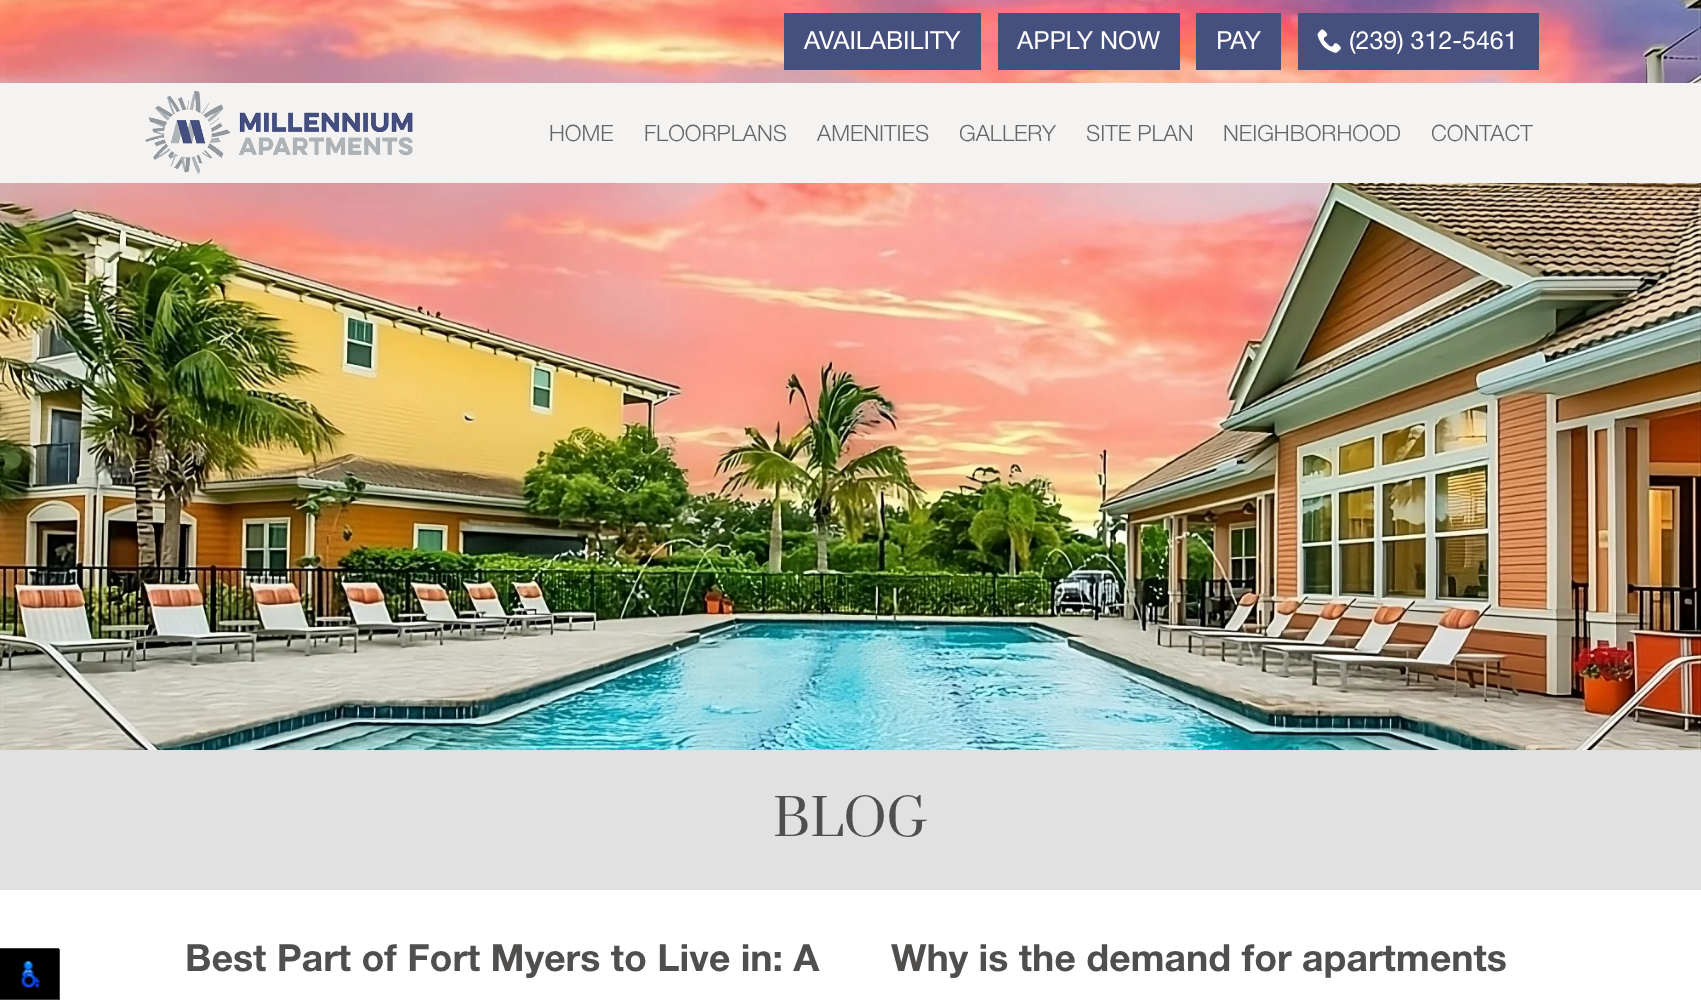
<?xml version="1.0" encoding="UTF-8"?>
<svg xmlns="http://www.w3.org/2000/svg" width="1701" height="1000">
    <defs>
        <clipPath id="clip1"><rect x="0" y="949" width="60" height="51"/></clipPath>
    </defs>
    <rect width="100%" height="100%" fill="#FFFFFF"/>
    <image x="0" y="0" width="1701" height="750" href="img_03.png"/>
    <rect x="784" y="13" width="197" height="57" fill="#46507F"/>
    <text x="804" y="49" font-family="Helvetica Neue" font-size="25" fill="#FFFFFF">AVAILABILITY</text>
    <rect x="998" y="13" width="182" height="57" fill="#46507F"/>
    <text x="1017" y="49" font-family="Helvetica Neue" font-size="25" fill="#FFFFFF">APPLY NOW</text>
    <rect x="1196" y="13" width="85" height="57" fill="#46507F"/>
    <text x="1216" y="49" font-family="Helvetica Neue" font-size="25" fill="#FFFFFF">PAY</text>
    <rect x="1298" y="13" width="241" height="57" fill="#46507F"/>
    <image x="1317" y="29" width="24" height="24" href="img_01.png"/>
    <text x="1349" y="49" font-family="Helvetica Neue" font-size="25" fill="#FFFFFF">(239) 312-5461</text>
    <rect x="0" y="83" width="1701" height="100" fill="#F4F3F2"/>
    <image x="145" y="90" width="268" height="84" href="img_02.png"/>
    <text x="549" y="141" font-family="Helvetica Neue" font-size="22.5" font-weight="300" fill="#666666">HOME</text>
    <text x="644" y="141" font-family="Helvetica Neue" font-size="22.5" font-weight="300" fill="#666666">FLOORPLANS</text>
    <text x="817" y="141" font-family="Helvetica Neue" font-size="22.5" font-weight="300" fill="#666666">AMENITIES</text>
    <text x="959" y="141" font-family="Helvetica Neue" font-size="22.5" font-weight="300" fill="#666666">GALLERY</text>
    <text x="1086" y="141" font-family="Helvetica Neue" font-size="22.5" font-weight="300" fill="#666666">SITE PLAN</text>
    <text x="1223" y="141" font-family="Helvetica Neue" font-size="22.5" font-weight="300" fill="#666666">NEIGHBORHOOD</text>
    <text x="1431" y="141" font-family="Helvetica Neue" font-size="22.5" font-weight="300" fill="#666666">CONTACT</text>
    <rect x="0" y="750" width="1701" height="140" fill="#E1E1E1"/>
    <text x="773" y="836" font-family="Prata" font-size="50" fill="#504F4D">BLOG</text>
    <path d="M -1 948 V 999 H 0 V 949 H 59 V 948 Z" fill="#404040"/>
    <rect x="0" y="949" width="59" height="50" fill="#000000"/>
    <g clip-path="url(#clip1)">
        <path d="M -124 825 H 184 V 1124 H -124 Z M -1 948 H 59 V 999 H -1 Z" fill="#404040" fill-rule="evenodd"/>
    </g>
    <image x="21" y="961" width="20" height="28" href="img_04.png"/>
    <text x="185" y="971" font-family="Helvetica Neue" font-size="37.5" font-weight="700" fill="#504F4D">Best Part of Fort Myers to Live in: A</text>
    <text x="891" y="971" font-family="Helvetica Neue" font-size="37.5" font-weight="700" fill="#504F4D">Why is the demand for apartments</text>
</svg>
